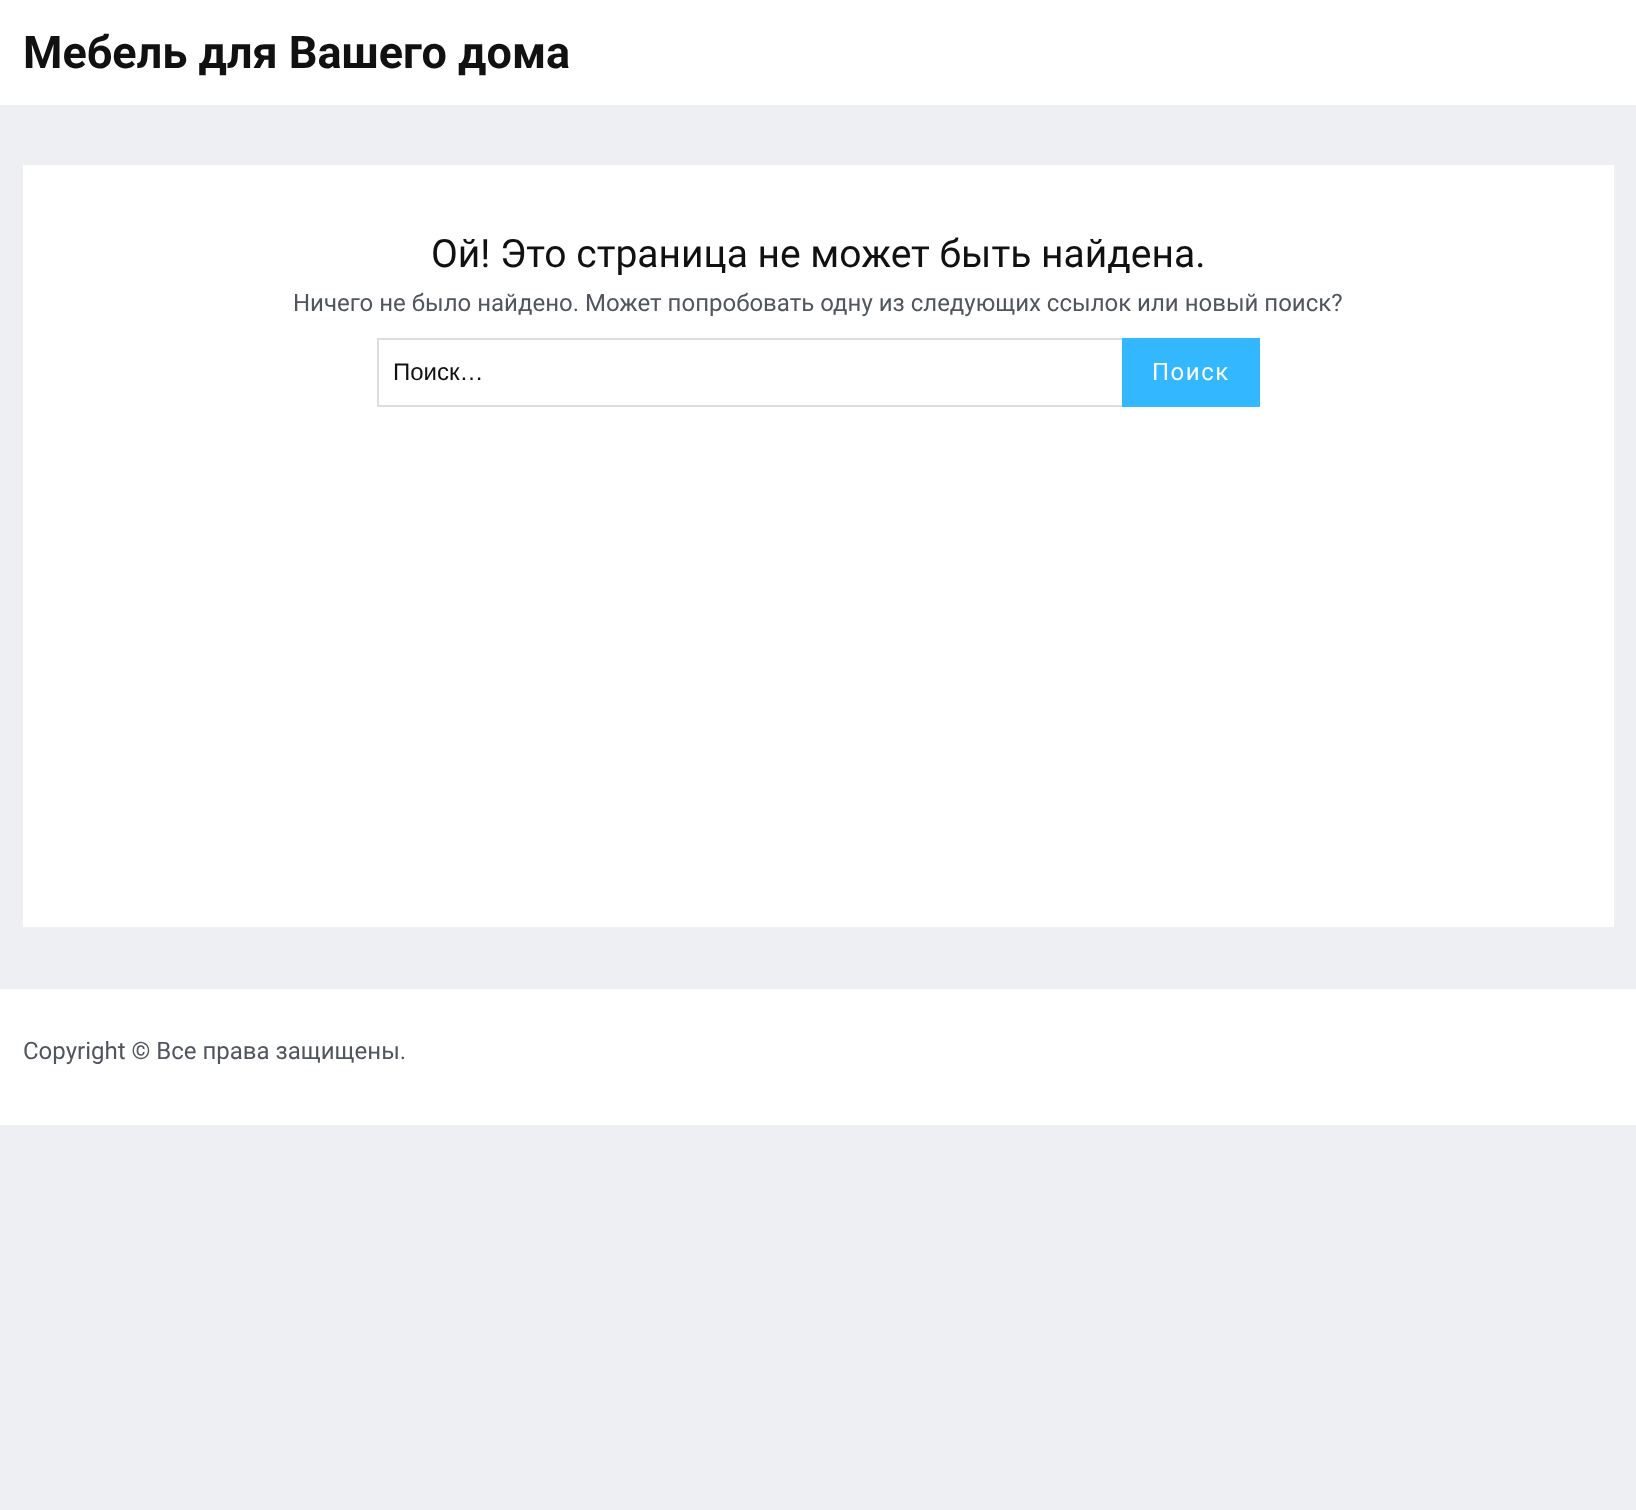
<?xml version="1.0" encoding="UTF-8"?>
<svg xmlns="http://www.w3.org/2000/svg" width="1636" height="1510">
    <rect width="100%" height="100%" fill="#EDEFF2"/>
    <rect x="0" y="0" width="1636" height="105" fill="#FFFFFF"/>
    <text x="23" y="68" font-family="Roboto" font-size="45" font-weight="700" fill="#111111">Мебель для Вашего дома</text>
    <rect x="23" y="165" width="1591" height="762" fill="#FFFFFF"/>
    <text x="431" y="267" font-family="Roboto" font-size="39" fill="#111111">Ой! Это страница не может быть найдена.</text>
    <text x="293" y="311" font-family="Roboto" font-size="24" fill="#51565E">Ничего не было найдено. Может попробовать одну из следующих ссылок или новый поиск?</text>
    <rect x="378" y="339" width="881" height="67" fill="none" stroke="#DDDDDD" stroke-width="2"/>
    <text x="393" y="380" font-family="Liberation Sans" font-size="24" fill="#111111">Поиск…</text>
    <rect x="1122" y="338" width="138" height="69" fill="#33B7FF"/>
    <text x="1152" y="380" font-family="Roboto" font-size="24" letter-spacing="1.5" fill="#FFFFFF">Поиск</text>
    <rect x="0" y="989" width="1636" height="136" fill="#FFFFFF"/>
    <text x="23" y="1059" font-family="Roboto" font-size="24" fill="#51565E">Copyright © Все права защищены.</text>
</svg>
